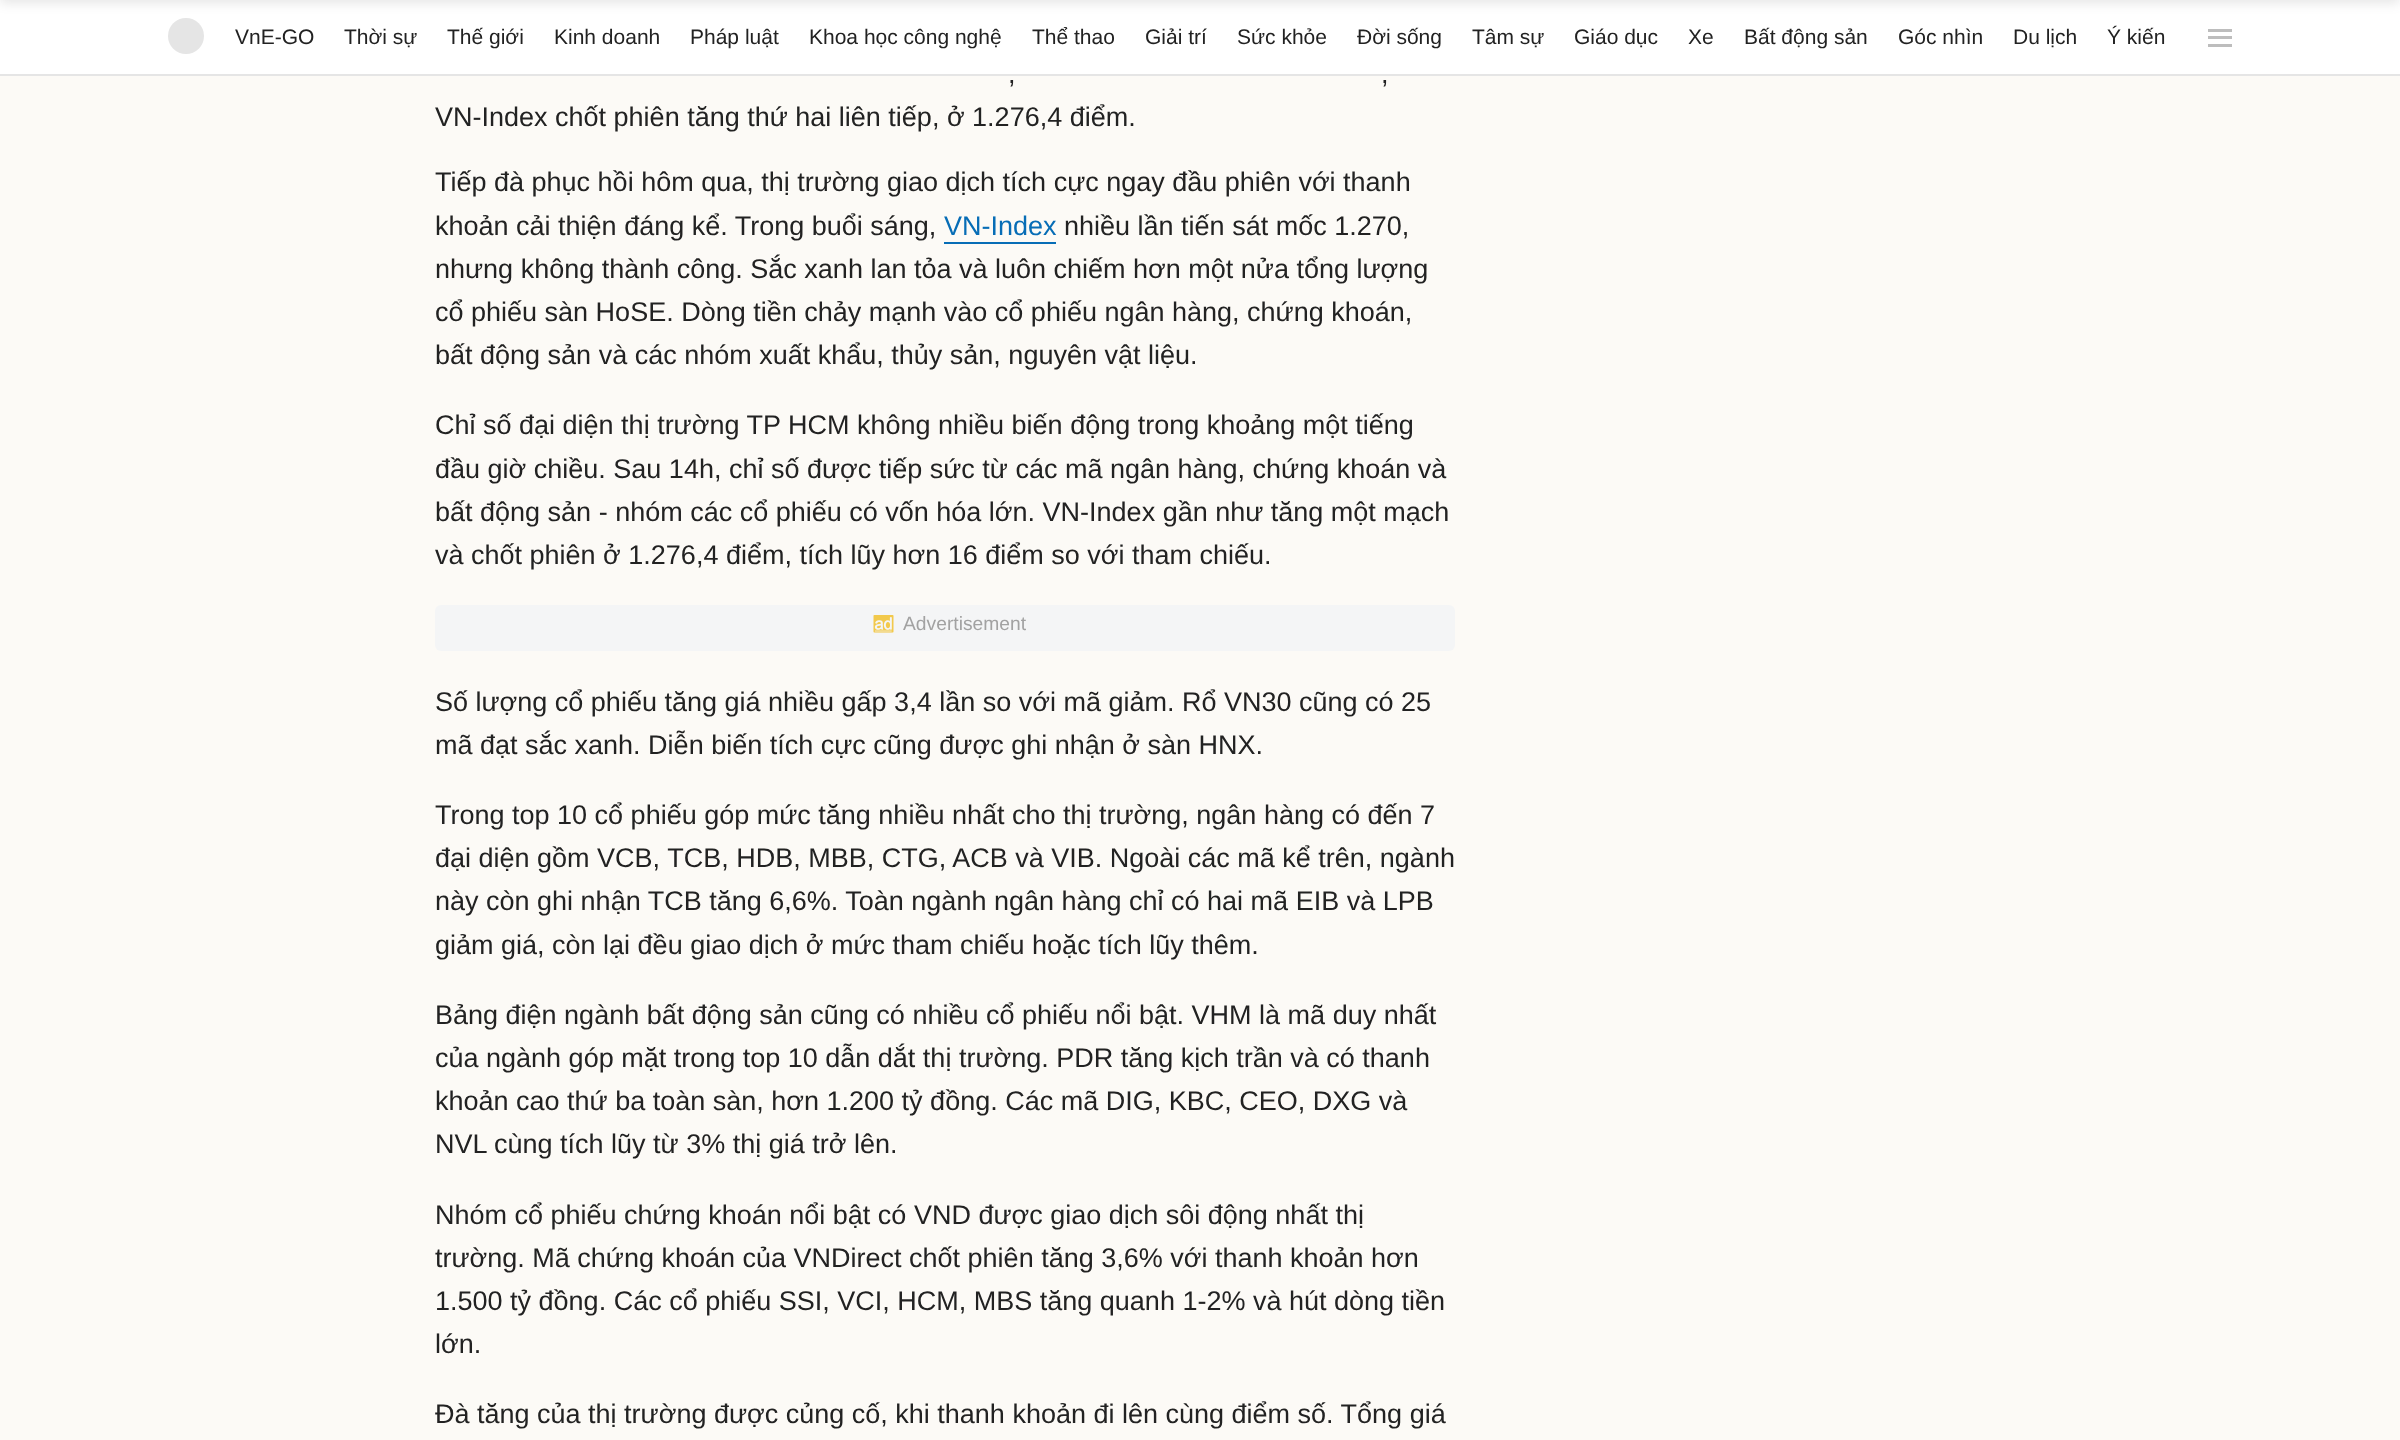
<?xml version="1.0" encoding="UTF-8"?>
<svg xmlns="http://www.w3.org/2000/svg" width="2400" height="1440">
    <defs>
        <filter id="blur1" x="-50%" y="-200%" width="200%" height="500%"><feGaussianBlur stdDeviation="6"/></filter>
    </defs>
    <rect width="100%" height="100%" fill="#FCFAF6"/>
    <rect x="0" y="0" width="2400" height="74" fill="#FFFFFF"/>
    <rect x="0" y="74" width="2400" height="2" fill="#E5E5E5"/>
    <circle cx="186" cy="36" r="18" fill="#E5E5E5"/>
    <text x="235" y="44" font-family="Liberation Sans" font-size="21" fill="#222222">VnE-GO</text>
    <text x="344" y="44" font-family="Liberation Sans" font-size="21" fill="#222222">Thời sự</text>
    <text x="447" y="44" font-family="Liberation Sans" font-size="21" fill="#222222">Thế giới</text>
    <text x="554" y="44" font-family="Liberation Sans" font-size="21" fill="#222222">Kinh doanh</text>
    <text x="690" y="44" font-family="Liberation Sans" font-size="21" fill="#222222">Pháp luật</text>
    <text x="809" y="44" font-family="Liberation Sans" font-size="21" fill="#222222">Khoa học công nghệ</text>
    <text x="1032" y="44" font-family="Liberation Sans" font-size="21" fill="#222222">Thể thao</text>
    <text x="1145" y="44" font-family="Liberation Sans" font-size="21" fill="#222222">Giải trí</text>
    <text x="1237" y="44" font-family="Liberation Sans" font-size="21" fill="#222222">Sức khỏe</text>
    <text x="1357" y="44" font-family="Liberation Sans" font-size="21" fill="#222222">Đời sống</text>
    <text x="1472" y="44" font-family="Liberation Sans" font-size="21" fill="#222222">Tâm sự</text>
    <text x="1574" y="44" font-family="Liberation Sans" font-size="21" fill="#222222">Giáo dục</text>
    <text x="1688" y="44" font-family="Liberation Sans" font-size="21" fill="#222222">Xe</text>
    <text x="1744" y="44" font-family="Liberation Sans" font-size="21" fill="#222222">Bất động sản</text>
    <text x="1898" y="44" font-family="Liberation Sans" font-size="21" fill="#222222">Góc nhìn</text>
    <text x="2013" y="44" font-family="Liberation Sans" font-size="21" fill="#222222">Du lịch</text>
    <text x="2107" y="44" font-family="Liberation Sans" font-size="21" fill="#222222">Ý kiến</text>
    <rect x="2208" y="29" width="24" height="3" fill="#BDBDBD"/>
    <rect x="2208" y="36" width="24" height="3" fill="#BDBDBD"/>
    <rect x="2208" y="44" width="24" height="3" fill="#BDBDBD"/>
    <rect x="0" y="-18" width="2400" height="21" fill="#000000" fill-opacity="0.1" filter="url(#blur1)"/>
    <text x="1008" y="83" font-family="Liberation Sans" font-size="27" fill="#222222">,</text>
    <text x="1381" y="83" font-family="Liberation Sans" font-size="27" fill="#222222">,</text>
    <text x="435" y="126" font-family="Liberation Sans" font-size="27" fill="#222222">VN-Index chốt phiên tăng thứ hai liên tiếp, ở 1.276,4 điểm.</text>
    <text font-family="Liberation Sans" font-size="27" fill="#222222">
        <tspan x="435" y="191">Tiếp đà phục hồi hôm qua, thị trường giao dịch tích cực ngay đầu phiên với thanh</tspan>
        <tspan x="435" y="235">khoản cải thiện đáng kể. Trong buổi sáng,</tspan>
    </text>
    <text x="944" y="235" font-family="Liberation Sans" font-size="27" fill="#076DB6">VN-Index</text>
    <rect x="944" y="242" width="112" height="2" fill="#076DB6"/>
    <text x="1064" y="235" font-family="Liberation Sans" font-size="27" fill="#222222">nhiều lần tiến sát mốc 1.270,</text>
    <text font-family="Liberation Sans" font-size="27" fill="#222222">
        <tspan x="435" y="278">nhưng không thành công. Sắc xanh lan tỏa và luôn chiếm hơn một nửa tổng lượng</tspan>
        <tspan x="435" y="321">cổ phiếu sàn HoSE. Dòng tiền chảy mạnh vào cổ phiếu ngân hàng, chứng khoán,</tspan>
        <tspan x="435" y="364">bất động sản và các nhóm xuất khẩu, thủy sản, nguyên vật liệu.</tspan>
    </text>
    <text font-family="Liberation Sans" font-size="27" fill="#222222">
        <tspan x="435" y="434">Chỉ số đại diện thị trường TP HCM không nhiều biến động trong khoảng một tiếng</tspan>
        <tspan x="435" y="478">đầu giờ chiều. Sau 14h, chỉ số được tiếp sức từ các mã ngân hàng, chứng khoán và</tspan>
        <tspan x="435" y="521">bất động sản - nhóm các cổ phiếu có vốn hóa lớn. VN-Index gần như tăng một mạch</tspan>
        <tspan x="435" y="564">và chốt phiên ở 1.276,4 điểm, tích lũy hơn 16 điểm so với tham chiếu.</tspan>
    </text>
    <rect x="435" y="605" width="1020" height="46" rx="6" fill="#F4F5F6"/>
    <image x="873" y="615" width="21" height="18" href="img_01.png"/>
    <text x="903" y="630" font-family="Liberation Sans" font-size="19.25" fill="#A2A2A2">Advertisement</text>
    <text font-family="Liberation Sans" font-size="27" fill="#222222">
        <tspan x="435" y="711">Số lượng cổ phiếu tăng giá nhiều gấp 3,4 lần so với mã giảm. Rổ VN30 cũng có 25</tspan>
        <tspan x="435" y="754">mã đạt sắc xanh. Diễn biến tích cực cũng được ghi nhận ở sàn HNX.</tspan>
    </text>
    <text font-family="Liberation Sans" font-size="27" fill="#222222">
        <tspan x="435" y="824">Trong top 10 cổ phiếu góp mức tăng nhiều nhất cho thị trường, ngân hàng có đến 7</tspan>
        <tspan x="435" y="867">đại diện gồm VCB, TCB, HDB, MBB, CTG, ACB và VIB. Ngoài các mã kể trên, ngành</tspan>
        <tspan x="435" y="910">này còn ghi nhận TCB tăng 6,6%. Toàn ngành ngân hàng chỉ có hai mã EIB và LPB</tspan>
        <tspan x="435" y="954">giảm giá, còn lại đều giao dịch ở mức tham chiếu hoặc tích lũy thêm.</tspan>
    </text>
    <text font-family="Liberation Sans" font-size="27" fill="#222222">
        <tspan x="435" y="1024">Bảng điện ngành bất động sản cũng có nhiều cổ phiếu nổi bật. VHM là mã duy nhất</tspan>
        <tspan x="435" y="1067">của ngành góp mặt trong top 10 dẫn dắt thị trường. PDR tăng kịch trần và có thanh</tspan>
        <tspan x="435" y="1110">khoản cao thứ ba toàn sàn, hơn 1.200 tỷ đồng. Các mã DIG, KBC, CEO, DXG và</tspan>
        <tspan x="435" y="1153">NVL cùng tích lũy từ 3% thị giá trở lên.</tspan>
    </text>
    <text font-family="Liberation Sans" font-size="27" fill="#222222">
        <tspan x="435" y="1224">Nhóm cổ phiếu chứng khoán nổi bật có VND được giao dịch sôi động nhất thị</tspan>
        <tspan x="435" y="1267">trường. Mã chứng khoán của VNDirect chốt phiên tăng 3,6% với thanh khoản hơn</tspan>
        <tspan x="435" y="1310">1.500 tỷ đồng. Các cổ phiếu SSI, VCI, HCM, MBS tăng quanh 1-2% và hút dòng tiền</tspan>
        <tspan x="435" y="1353">lớn.</tspan>
    </text>
    <text x="435" y="1423" font-family="Liberation Sans" font-size="27" fill="#222222">Đà tăng của thị trường được củng cố, khi thanh khoản đi lên cùng điểm số. Tổng giá</text>
</svg>
